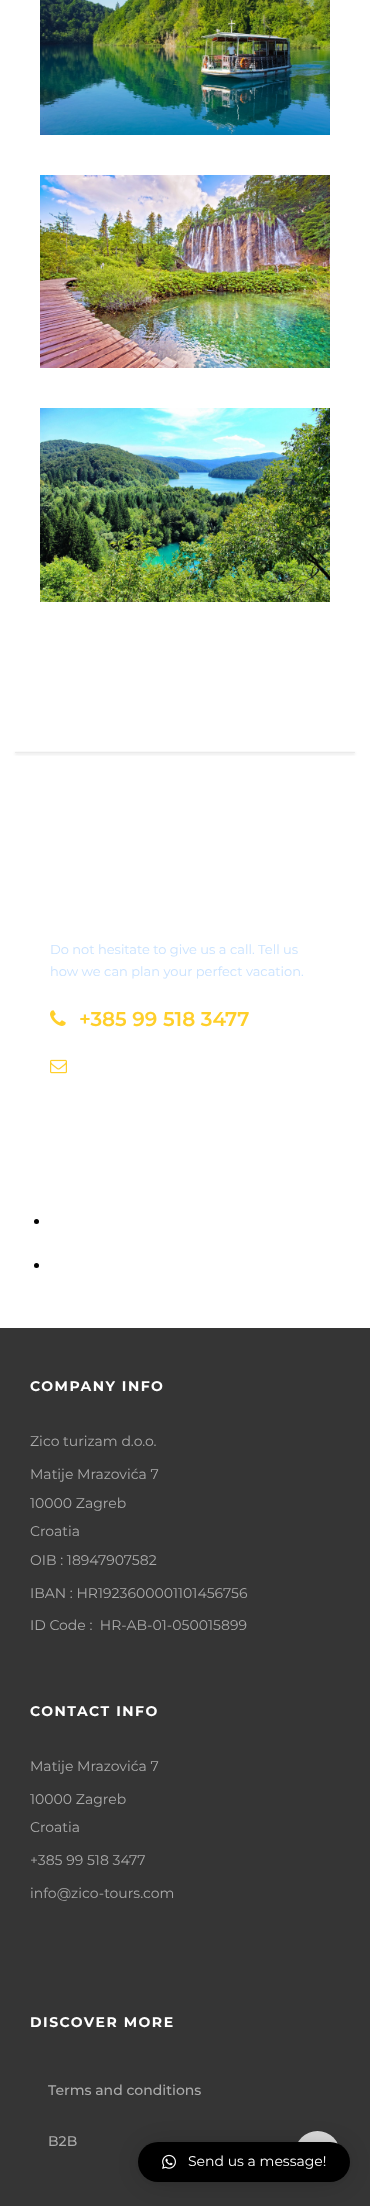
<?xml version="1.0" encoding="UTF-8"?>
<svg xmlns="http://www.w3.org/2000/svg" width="370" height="2206">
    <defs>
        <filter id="blur1" x="-50%" y="-200%" width="200%" height="500%"><feGaussianBlur stdDeviation="1.5"/></filter>
        <filter id="blur2" x="-50%" y="-200%" width="200%" height="500%"><feGaussianBlur stdDeviation="16"/></filter>
        <filter id="blur3" x="-50%" y="-200%" width="200%" height="500%"><feGaussianBlur stdDeviation="3"/></filter>
    </defs>
    <rect width="100%" height="100%" fill="#FFFFFF"/>
    <image x="40" y="0" width="290" height="135" href="img_01.png"/>
    <image x="40" y="175" width="290" height="193" href="img_02.png"/>
    <image x="40" y="408" width="290" height="194" href="img_03.png"/>
    <rect x="15" y="753" width="340" height="1" fill="#000000" fill-opacity="0.2" filter="url(#blur1)"/>
    <rect x="15" y="752" width="340" height="1" fill="#EBEBEB"/>
    <text font-family="Montserrat" font-size="13" fill="#C9E2FF">
        <tspan x="50" y="954">Do not hesitate to give us a call. Tell us</tspan>
        <tspan x="50" y="976">how we can plan your perfect vacation.</tspan>
    </text>
    <image x="50" y="1010" width="16" height="16" href="img_04.png"/>
    <text x="79" y="1026" font-family="Montserrat" font-size="20" font-weight="600" fill="#FFCF2A">+385 99 518 3477</text>
    <image x="50" y="1059" width="17" height="15" href="img_05.png"/>
    <circle cx="36.5" cy="1221.5" r="2.5" fill="#020202"/>
    <circle cx="36.5" cy="1265.5" r="2.5" fill="#020202"/>
    <rect x="0" y="1328" width="370" height="878" fill="#353535"/>
    <text x="30" y="1391" font-family="Montserrat" font-size="14" font-weight="700" letter-spacing="1.5" fill="#FFFFFF">COMPANY INFO</text>
    <text x="30" y="1446" font-family="Montserrat" font-size="14" fill="#ABABAB">Zico turizam d.o.o.</text>
    <text x="30" y="1479" font-family="Montserrat" font-size="14" fill="#ABABAB">Matije Mrazovića 7</text>
    <text x="30" y="1508" font-family="Montserrat" font-size="14" fill="#ABABAB">10000 Zagreb</text>
    <text x="30" y="1536" font-family="Montserrat" font-size="14" fill="#ABABAB">Croatia</text>
    <text x="30" y="1565" font-family="Montserrat" font-size="14" fill="#ABABAB">OIB : 18947907582</text>
    <text x="30" y="1598" font-family="Montserrat" font-size="14" fill="#ABABAB">IBAN : HR1923600001101456756</text>
    <text x="30" y="1630" font-family="Montserrat" font-size="14" fill="#ABABAB" xml:space="preserve">ID Code :  HR-AB-01-050015899</text>
    <text x="30" y="1716" font-family="Montserrat" font-size="14" font-weight="700" letter-spacing="1.5" fill="#FFFFFF">CONTACT INFO</text>
    <text x="30" y="1771" font-family="Montserrat" font-size="14" fill="#ABABAB">Matije Mrazovića 7</text>
    <text x="30" y="1804" font-family="Montserrat" font-size="14" fill="#ABABAB">10000 Zagreb</text>
    <text x="30" y="1832" font-family="Montserrat" font-size="14" fill="#ABABAB">Croatia</text>
    <text x="30" y="1865" font-family="Montserrat" font-size="14" fill="#ABABAB">+385 99 518 3477</text>
    <text x="30" y="1898" font-family="Montserrat" font-size="14" fill="#ABABAB">info@zico-tours.com</text>
    <text x="30" y="2027" font-family="Montserrat" font-size="14" font-weight="700" letter-spacing="1.5" fill="#FFFFFF">DISCOVER MORE</text>
    <text x="48" y="2095" font-family="Montserrat" font-size="14" font-weight="500" fill="#ABABAB">Terms and conditions</text>
    <text x="48" y="2146" font-family="Montserrat" font-size="14" font-weight="500" fill="#ABABAB">B2B</text>
    <circle cx="317.5" cy="2153.5" r="22.5" fill="#DBDBDB"/>
    <rect x="138" y="2144" width="212" height="40" rx="20" fill="#000000" fill-opacity="0.16" filter="url(#blur2)"/>
    <rect x="138" y="2143" width="212" height="40" rx="20" fill="#000000" fill-opacity="0.06" filter="url(#blur3)"/>
    <rect x="138" y="2142" width="212" height="40" rx="20" fill="#000000"/>
    <image x="162" y="2154" width="14" height="15" href="img_06.png"/>
    <text x="188" y="2166" font-family="Montserrat" font-size="14" fill="#FFFFFF">Send us a message!</text>
</svg>
